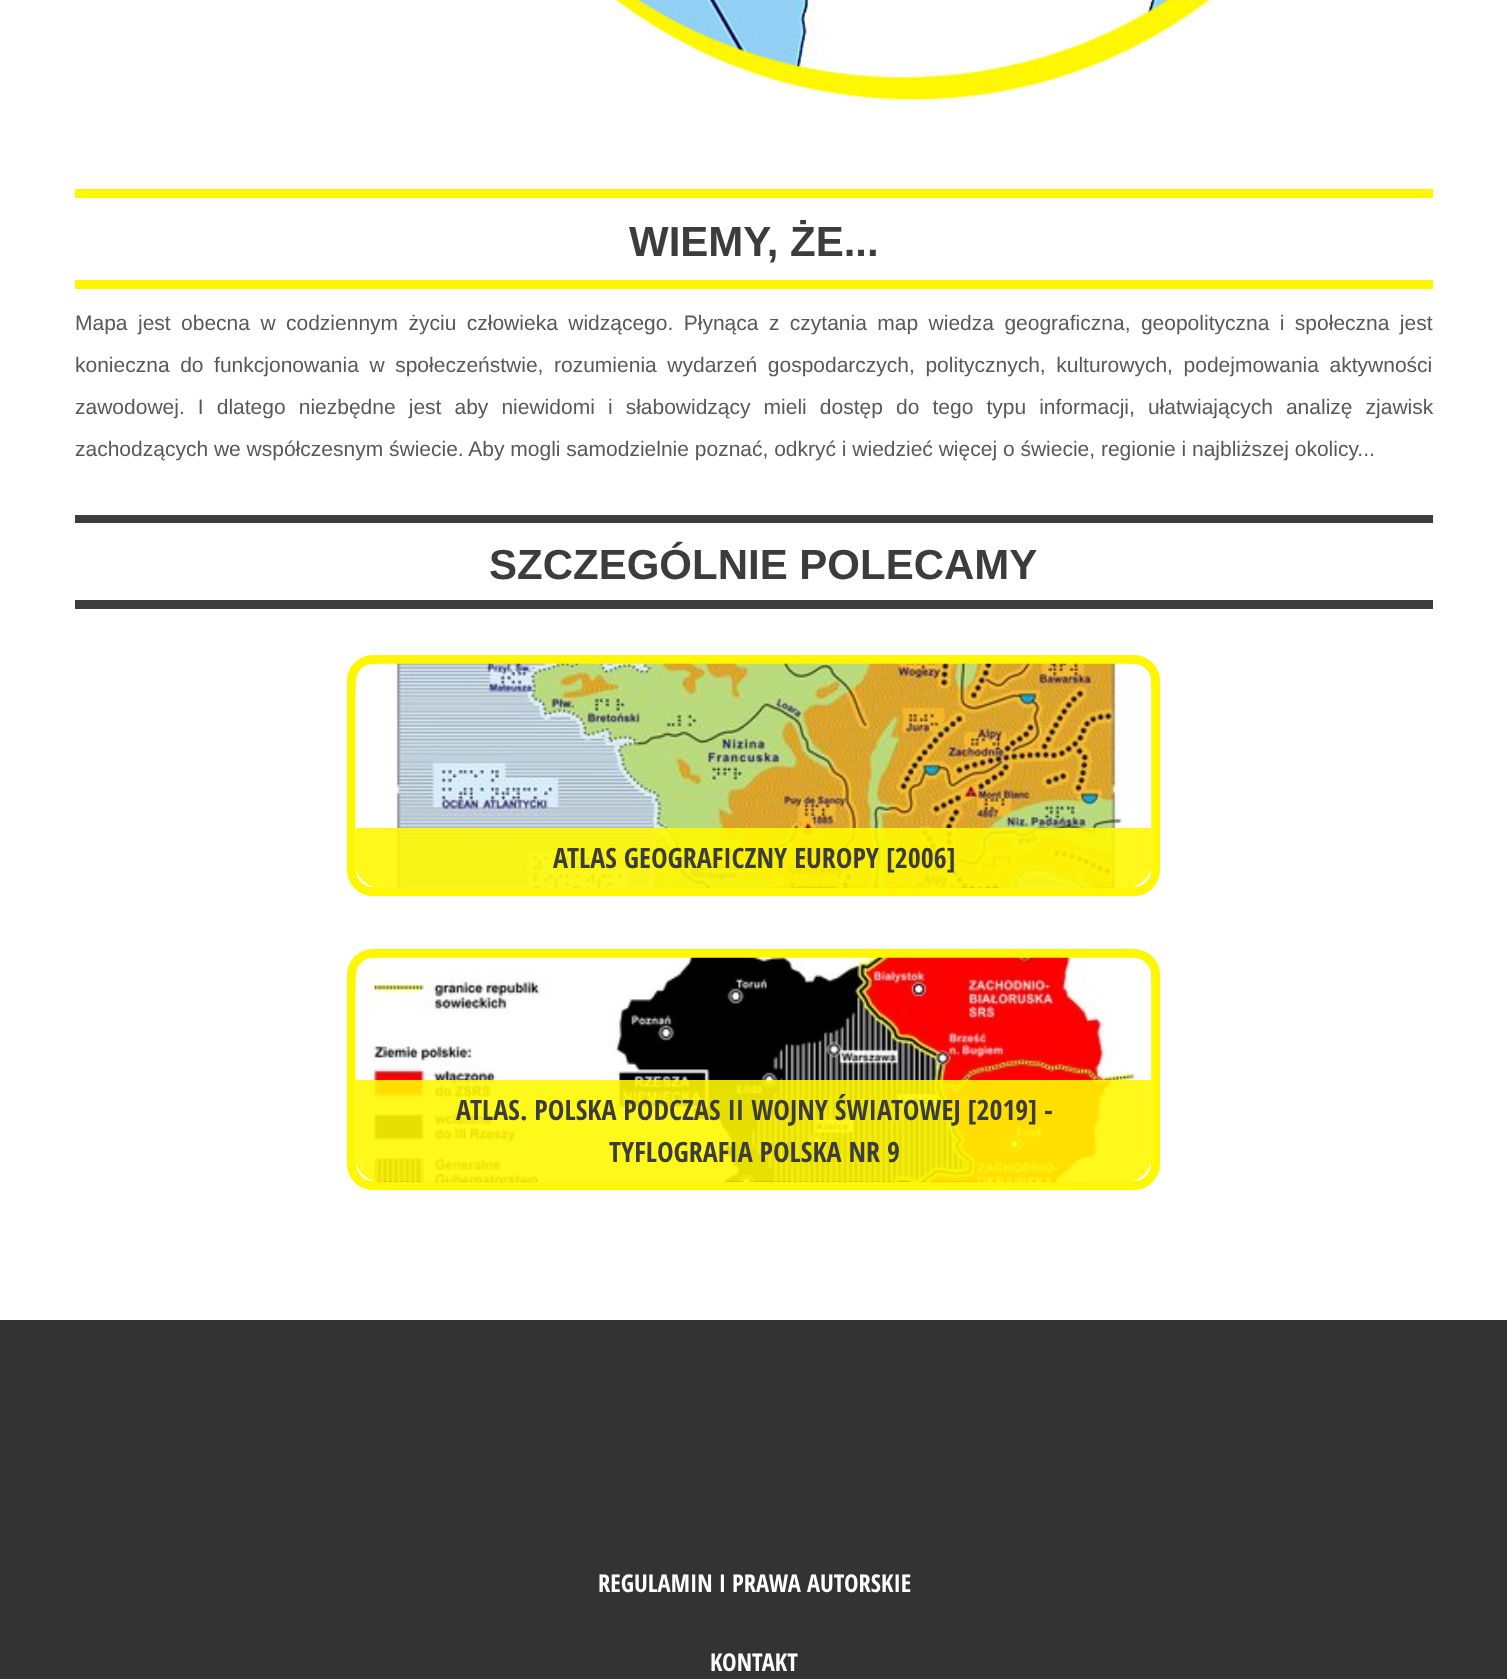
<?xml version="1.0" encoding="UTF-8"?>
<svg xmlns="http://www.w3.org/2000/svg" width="1507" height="1679">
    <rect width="100%" height="100%" fill="#FFFFFF"/>
    <image x="607" y="0" width="609" height="105" href="img_01.png"/>
    <rect x="75" y="189" width="1358" height="9" fill="#FFF701"/>
    <text x="629" y="256" font-family="Liberation Sans" font-size="42" font-weight="700" fill="#3C3C3C">WIEMY, ŻE...</text>
    <rect x="75" y="280" width="1358" height="9" fill="#FFF701"/>
    <text x="75" y="330" word-spacing="4.6" font-family="Liberation Sans" font-size="21" fill="#585858">Mapa jest obecna w codziennym życiu człowieka widzącego. Płynąca z czytania map wiedza geograficzna, geopolityczna i społeczna jest</text>
    <text x="75" y="372" word-spacing="4.75" font-family="Liberation Sans" font-size="21" fill="#585858">konieczna do funkcjonowania w społeczeństwie, rozumienia wydarzeń gospodarczych, politycznych, kulturowych, podejmowania aktywności</text>
    <text x="75" y="414" word-spacing="7.25" font-family="Liberation Sans" font-size="21" fill="#585858">zawodowej. I dlatego niezbędne jest aby niewidomi i słabowidzący mieli dostęp do tego typu informacji, ułatwiających analizę zjawisk</text>
    <text x="75" y="456" font-family="Liberation Sans" font-size="21" fill="#585858">zachodzących we współczesnym świecie. Aby mogli samodzielnie poznać, odkryć i wiedzieć więcej o świecie, regionie i najbliższej okolicy...</text>
    <rect x="75" y="515" width="1358" height="8" fill="#3C3C3C"/>
    <text x="489" y="579" font-family="Liberation Sans" font-size="42" font-weight="700" fill="#3C3C3C">SZCZEGÓLNIE POLECAMY</text>
    <rect x="75" y="600" width="1358" height="9" fill="#3C3C3C"/>
    <rect x="351.5" y="659.5" width="804" height="232" rx="21.5" fill="none" stroke="#FFF701" stroke-width="9"/>
    <image x="355" y="663" width="797" height="225" href="img_02.png"/>
    <image x="355" y="828" width="797" height="60" href="img_03.png"/>
    <text x="553" y="868" font-family="Open Sans Condensed" font-size="28" font-weight="700" fill="#3C3C3C">ATLAS GEOGRAFICZNY EUROPY [2006]</text>
    <rect x="351.5" y="953.5" width="804" height="232" rx="21.5" fill="none" stroke="#FFF701" stroke-width="9"/>
    <image x="355" y="957" width="797" height="225" href="img_04.png"/>
    <image x="355" y="1080" width="797" height="102" href="img_05.png"/>
    <text x="456" y="1120" font-family="Open Sans Condensed" font-size="28" font-weight="700" fill="#3C3C3C">ATLAS. POLSKA PODCZAS II WOJNY ŚWIATOWEJ [2019] -</text>
    <text x="609" y="1162" font-family="Open Sans Condensed" font-size="28" font-weight="700" fill="#3C3C3C">TYFLOGRAFIA POLSKA NR 9</text>
    <rect x="0" y="1320" width="1507" height="359" fill="#333333"/>
    <text x="598" y="1592" font-family="Open Sans Condensed" font-size="24.5" font-weight="700" fill="#FFFFFF">REGULAMIN I PRAWA AUTORSKIE</text>
    <text x="710" y="1671" font-family="Open Sans Condensed" font-size="24.5" font-weight="700" fill="#FFFFFF">KONTAKT</text>
</svg>
